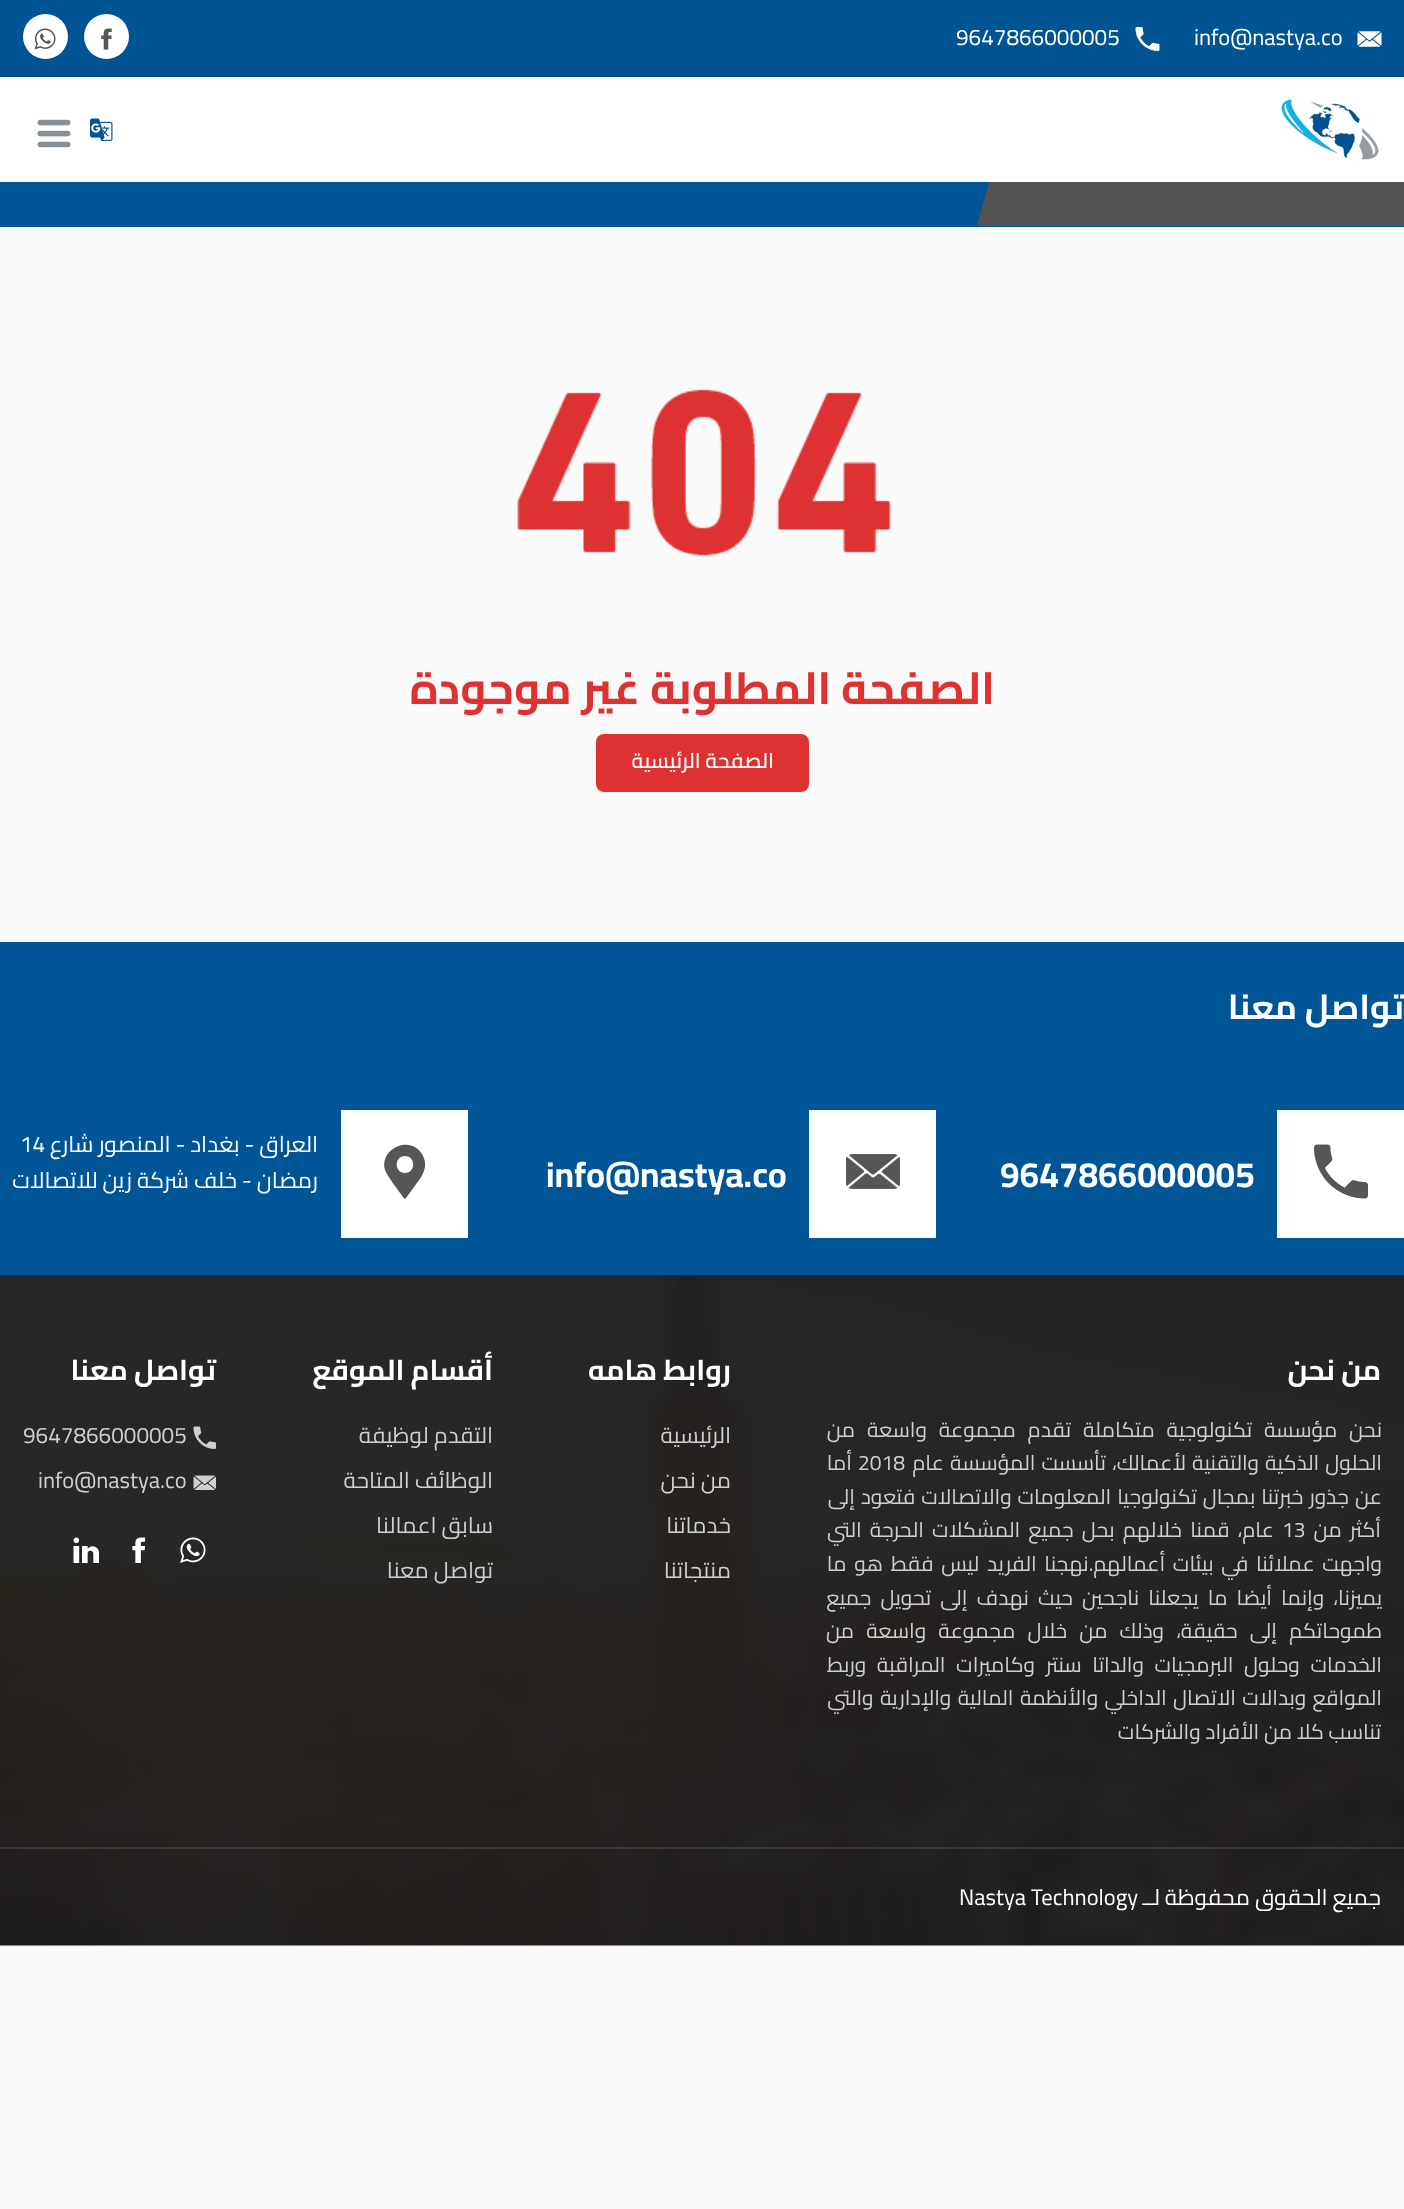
<?xml version="1.0" encoding="UTF-8"?>
<svg xmlns="http://www.w3.org/2000/svg" width="1404" height="2209">
    <rect width="100%" height="100%" fill="#FAFAFA"/>
    <rect x="0" y="0" width="1404" height="75" fill="#005494"/>
    <rect x="0" y="75" width="1404" height="2" fill="#004C85"/>
    <image x="1357" y="31" width="25" height="16" href="img_01.png"/>
    <text x="1194" y="45" font-family="Cairo" font-size="22.5" fill="#FFFFFF">info@nastya.co</text>
    <image x="1135" y="27" width="25" height="24" href="img_02.png"/>
    <text x="956" y="45" font-family="Cairo" font-size="22.5" fill="#FFFFFF">9647866000005</text>
    <circle cx="106.5" cy="36.5" r="22.5" fill="#FFFFFF"/>
    <image x="101" y="28" width="11" height="22" href="img_03.png"/>
    <circle cx="45.5" cy="36.5" r="22.5" fill="#FFFFFF"/>
    <image x="34" y="28" width="22" height="22" href="img_04.png"/>
    <rect x="0" y="77" width="1404" height="105" fill="#FFFFFF"/>
    <image x="1281" y="98" width="98" height="62" href="img_05.png"/>
    <image x="90" y="118" width="23" height="23" href="img_06.png"/>
    <image x="37" y="119" width="34" height="29" href="img_07.png"/>
    <rect x="0" y="182" width="1404" height="45" fill="#005596"/>
    <path d="M 989 182 H 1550 L 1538 226 H 977 Z" fill="#535353"/>
    <image x="517" y="389" width="375" height="167" href="img_08.png"/>
    <text x="995" y="704" font-family="Cairo" font-size="45" font-weight="700" direction="rtl" fill="#DE3131">الصفحة المطلوبة غير موجودة</text>
    <rect x="596" y="734" width="213" height="58" rx="8" fill="#DE3131"/>
    <text x="774" y="768" font-family="Cairo" font-size="21" font-weight="600" direction="rtl" fill="#FFFFFF">الصفحة الرئيسية</text>
    <rect x="0" y="942" width="1404" height="333" fill="#005596"/>
    <text x="1404" y="1019" font-family="Cairo" font-size="34.5" font-weight="700" direction="rtl" fill="#FFFFFF">تواصل معنا</text>
    <rect x="1277" y="1110" width="127" height="128" fill="#FFFFFF"/>
    <image x="1314" y="1144" width="54" height="55" href="img_09.png"/>
    <text x="1000" y="1187" font-family="Cairo" font-size="35.25" font-weight="700" fill="#FFFFFF">9647866000005</text>
    <rect x="809" y="1110" width="127" height="128" fill="#FFFFFF"/>
    <image x="846" y="1154" width="54" height="35" href="img_10.png"/>
    <text x="546" y="1187" font-family="Cairo" font-size="35.25" font-weight="700" fill="#FFFFFF">info@nastya.co</text>
    <rect x="341" y="1110" width="127" height="128" fill="#FFFFFF"/>
    <path d="M 403 1197 L 392 1182 C 390 1178 387 1175 385 1170 C 379 1147 413 1134 423 1156 C 429 1168 421 1178 414 1187 L 406 1198 C 405 1199 404 1199 403 1197 Z M 405 1173 C 416 1173 416 1156 405 1156 C 394 1156 394 1173 405 1173 Z" fill="#565656"/>
    <text x="318" y="1152" font-family="Cairo" font-size="22.5" direction="rtl" fill="#FFFFFF">العراق - بغداد - المنصور شارع</text>
    <text x="20" y="1152" font-family="Cairo" font-size="22.5" fill="#FFFFFF">14</text>
    <text x="318" y="1188" font-family="Cairo" font-size="22.5" direction="rtl" fill="#FFFFFF">رمضان - خلف شركة زين للاتصالات</text>
    <image x="0" y="1275" width="1404" height="671" href="img_11.png"/>
    <text x="1381" y="1380" font-family="Cairo" font-size="28.5" font-weight="700" direction="rtl" fill="#FFFFFF">من نحن</text>
    <text font-family="Cairo" font-size="21" direction="rtl" fill="#CECFCF">
        <tspan x="1382" y="1437" word-spacing="7.25">نحن مؤسسة تكنولوجية متكاملة تقدم مجموعة واسعة من</tspan>
        <tspan x="1382" y="1470" word-spacing="1.5">الحلول الذكية والتقنية لأعمالك، تأسست المؤسسة عام</tspan>
    </text>
    <text x="858" y="1470" font-family="Cairo" font-size="21" fill="#CECFCF">2018</text>
    <text x="852" y="1470" font-family="Cairo" font-size="21" direction="rtl" fill="#CECFCF">أما</text>
    <text x="1382" y="1504" word-spacing="1.25" font-family="Cairo" font-size="21" direction="rtl" fill="#CECFCF">عن جذور خبرتنا بمجال تكنولوجيا المعلومات والاتصالات فتعود إلى</text>
    <text x="1381" y="1537" word-spacing="3.5" font-family="Cairo" font-size="21" direction="rtl" fill="#CECFCF">أكثر من</text>
    <text x="1282" y="1537" font-family="Cairo" font-size="21" fill="#CECFCF">13</text>
    <text x="1274" y="1537" word-spacing="3.5" font-family="Cairo" font-size="21" direction="rtl" fill="#CECFCF">عام، قمنا خلالهم بحل جميع المشكلات الحرجة التي</text>
    <text font-family="Cairo" font-size="21" direction="rtl" fill="#CECFCF">
        <tspan x="1382" y="1571" word-spacing="3">واجهت عملائنا في بيئات أعمالهم.نهجنا الفريد ليس فقط هو ما</tspan>
        <tspan x="1382" y="1605" word-spacing="4.5">يميزنا، وإنما أيضا ما يجعلنا ناجحين حيث نهدف إلى تحويل جميع</tspan>
        <tspan x="1382" y="1638" word-spacing="7.5">طموحاتكم إلى حقيقة، وذلك من خلال مجموعة واسعة من</tspan>
        <tspan x="1382" y="1672" word-spacing="6">الخدمات وحلول البرمجيات والداتا سنتر وكاميرات المراقبة وربط</tspan>
        <tspan x="1382" y="1705" word-spacing="1.75">المواقع وبدالات الاتصال الداخلي والأنظمة المالية والإدارية والتي</tspan>
    </text>
    <text x="1381" y="1739" font-family="Cairo" font-size="21" direction="rtl" fill="#CECFCF">تناسب كلا من الأفراد والشركات</text>
    <text x="731" y="1380" font-family="Cairo" font-size="28.5" font-weight="700" direction="rtl" fill="#FFFFFF">روابط هامه</text>
    <text x="731" y="1443" font-family="Cairo" font-size="22.5" direction="rtl" fill="#CECFCF">الرئيسية</text>
    <text x="731" y="1488" font-family="Cairo" font-size="22.5" direction="rtl" fill="#CECFCF">من نحن</text>
    <text x="731" y="1533" font-family="Cairo" font-size="22.5" direction="rtl" fill="#CECFCF">خدماتنا</text>
    <text x="731" y="1578" font-family="Cairo" font-size="22.5" direction="rtl" fill="#CECFCF">منتجاتنا</text>
    <text x="493" y="1380" font-family="Cairo" font-size="28.5" font-weight="700" direction="rtl" fill="#FFFFFF">أقسام الموقع</text>
    <text x="493" y="1443" font-family="Cairo" font-size="22.5" direction="rtl" fill="#CECFCF">التقدم لوظيفة</text>
    <text x="493" y="1488" font-family="Cairo" font-size="22.5" direction="rtl" fill="#CECFCF">الوظائف المتاحة</text>
    <text x="493" y="1533" font-family="Cairo" font-size="22.5" direction="rtl" fill="#CECFCF">سابق اعمالنا</text>
    <text x="493" y="1578" font-family="Cairo" font-size="22.5" direction="rtl" fill="#CECFCF">تواصل معنا</text>
    <text x="216" y="1380" font-family="Cairo" font-size="28.5" font-weight="700" direction="rtl" fill="#FFFFFF">تواصل معنا</text>
    <image x="193" y="1426" width="23" height="23" href="img_12.png"/>
    <text x="23" y="1443" font-family="Cairo" font-size="22.5" fill="#CECFCF">9647866000005</text>
    <image x="193" y="1475" width="23" height="15" href="img_13.png"/>
    <text x="38" y="1488" font-family="Cairo" font-size="22.5" fill="#CECFCF">info@nastya.co</text>
    <image x="180" y="1537" width="26" height="26" href="img_14.png"/>
    <image x="132" y="1537" width="14" height="26" href="img_15.png"/>
    <image x="73" y="1537" width="26" height="26" href="img_16.png"/>
    <rect x="0" y="1847" width="1404" height="2" fill="#FFFFFF" fill-opacity="0.1"/>
    <text x="1381" y="1905" font-family="Cairo" font-size="22.5" direction="rtl" fill="#FFFFFF">جميع الحقوق محفوظة لــ</text>
    <text x="959" y="1905" font-family="Cairo" font-size="22.5" fill="#FFFFFF">Nastya Technology</text>
</svg>
